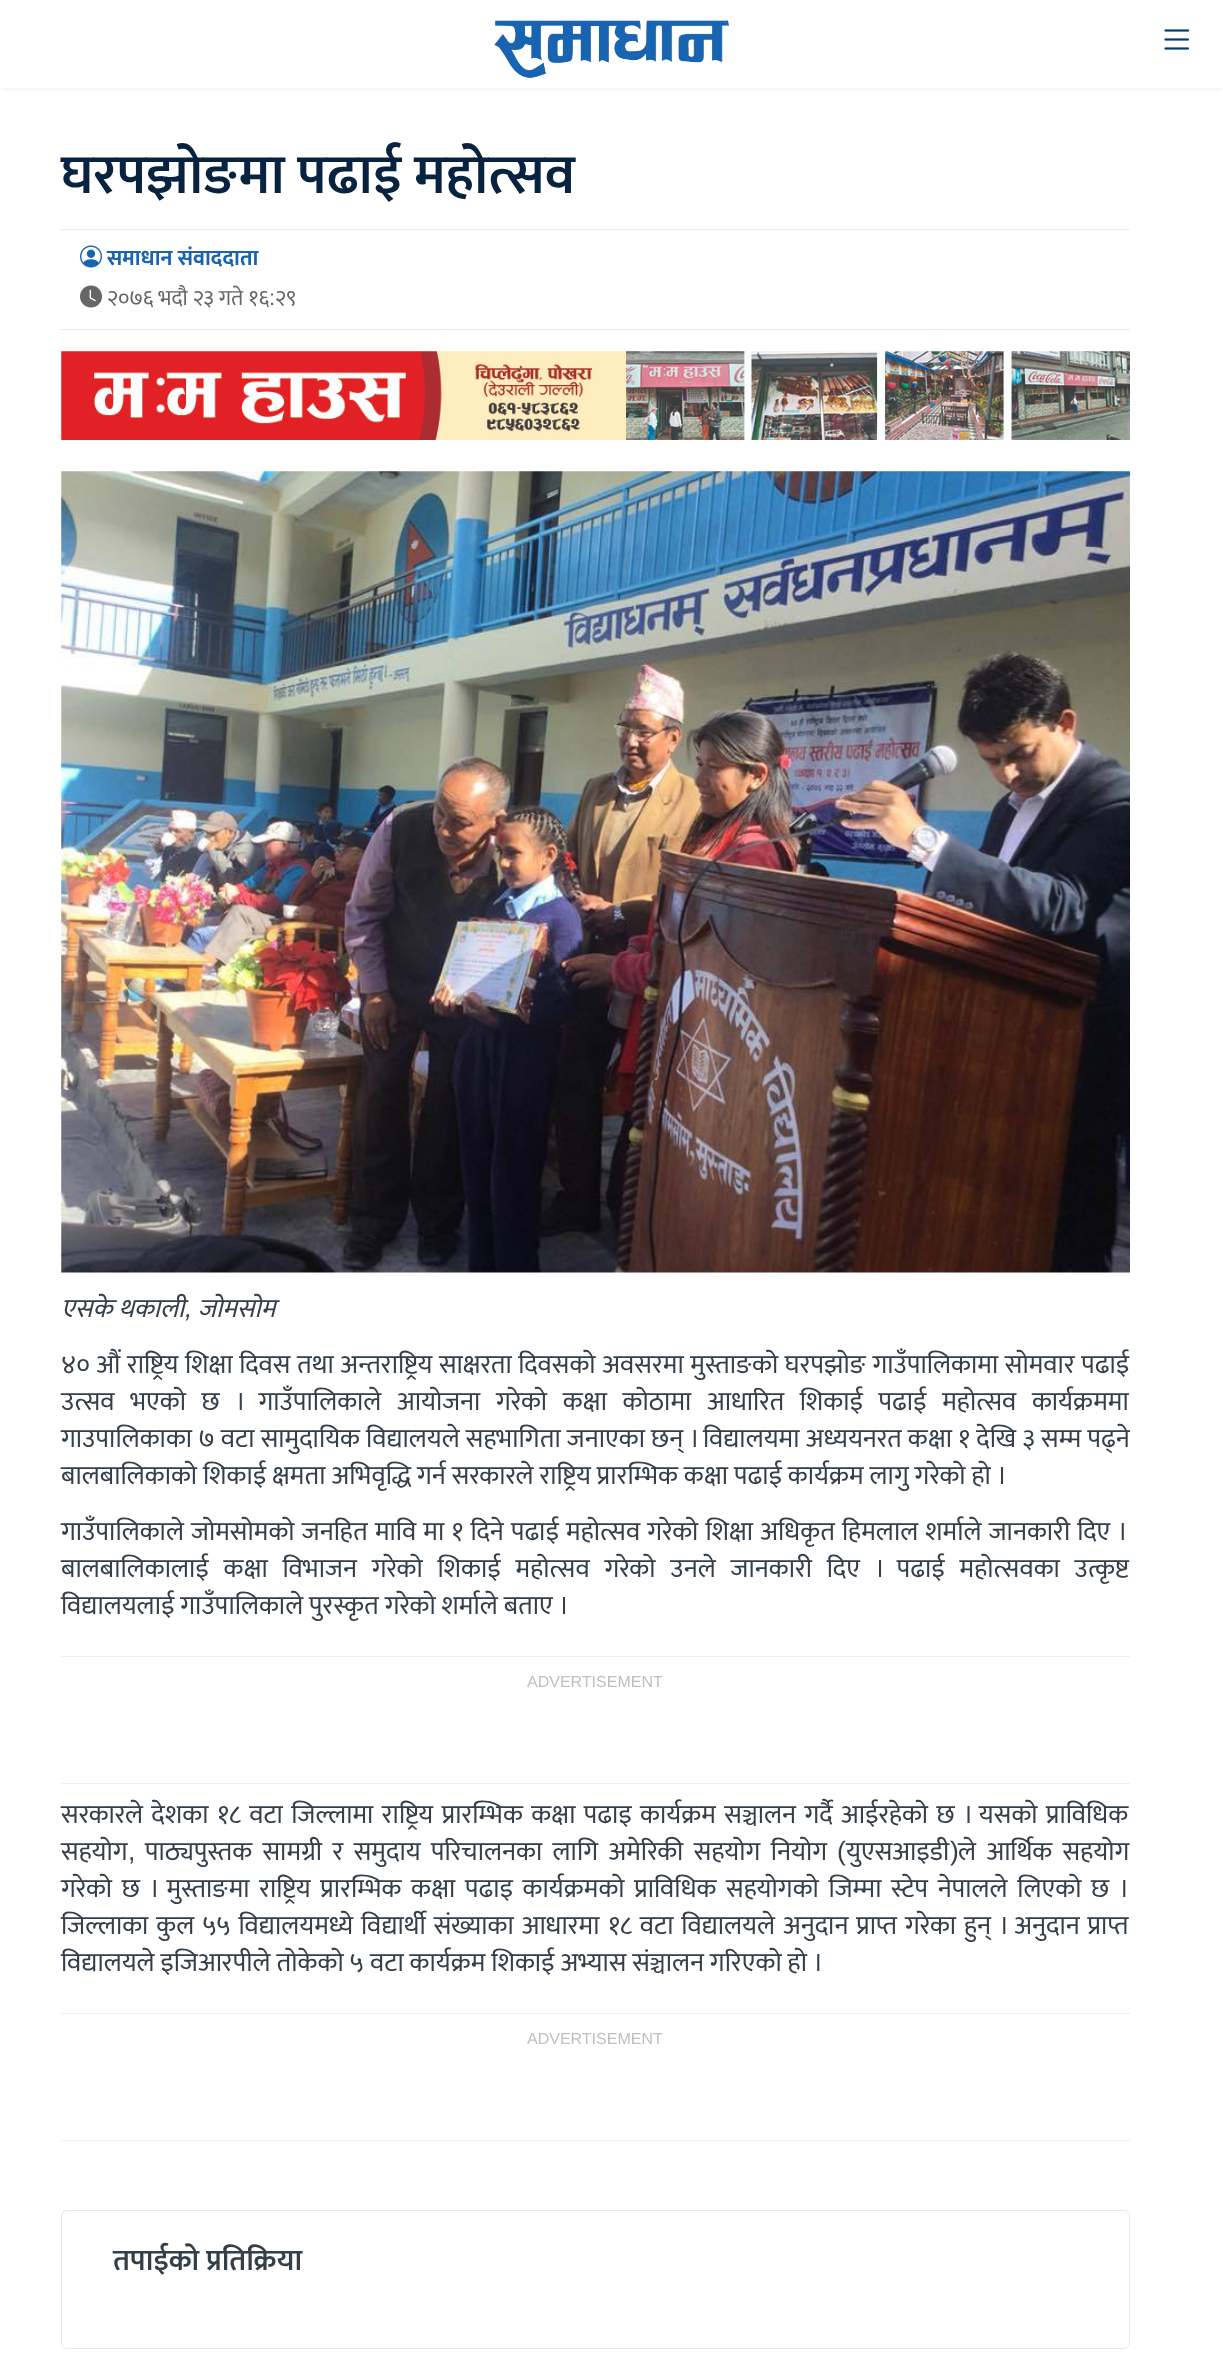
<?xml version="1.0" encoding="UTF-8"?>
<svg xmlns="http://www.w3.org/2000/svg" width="1223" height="2357">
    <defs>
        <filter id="blur1" x="-50%" y="-200%" width="200%" height="500%"><feGaussianBlur stdDeviation="3"/></filter>
    </defs>
    <rect width="100%" height="100%" fill="#FFFFFF"/>
    <rect x="3" y="4" width="1218" height="82" fill="#D0D0D0" filter="url(#blur1)"/>
    <rect x="0" y="0" width="1223" height="88" fill="#FFFFFF"/>
    <image x="494" y="20" width="235" height="58" href="img_01.png"/>
    <image x="1164" y="29" width="26" height="21" href="img_02.png"/>
    <rect x="61" y="329" width="1069" height="1" fill="#EAEAEA"/>
    <text x="61" y="193" font-family="Mukta" font-size="56" font-weight="600" fill="#072340">घरपझोङमा पढाई महोत्सव</text>
    <rect x="61" y="229" width="1069" height="1" fill="#EAEAEA"/>
    <image x="80" y="245" width="22" height="23" href="img_03.png"/>
    <text x="107" y="265" font-family="Mukta" font-size="22" font-weight="700" fill="#1964B0">समाधान संवाददाता</text>
    <image x="80" y="285" width="22" height="23" href="img_04.png"/>
    <text x="107" y="305" font-family="Mukta" font-size="22" fill="#666666">२०७६ भदौ २३ गते १६</text>
    <text x="269" y="305" font-family="Liberation Sans" font-size="22" fill="#666666">:</text>
    <text x="275" y="305" font-family="Mukta" font-size="22" fill="#666666">२९</text>
    <image x="61" y="351" width="1069" height="89" href="img_05.png"/>
    <image x="61" y="471" width="1069" height="802" href="img_06.png"/>
    <text x="61" y="1317" font-family="Mukta" font-size="26.45" font-style="italic" fill="#343F4A">एसके थकाली</text>
    <text x="185" y="1317" font-family="Liberation Sans" font-size="26.45" font-style="italic" fill="#343F4A">,</text>
    <text x="198" y="1317" font-family="Mukta" font-size="26.45" font-style="italic" fill="#343F4A">जोमसोम</text>
    <text font-family="Mukta" font-size="26.45" fill="#343F4A">
        <tspan x="61" y="1373" word-spacing="0.7">४० औं राष्ट्रिय शिक्षा दिवस तथा अन्तराष्ट्रिय साक्षरता दिवसको अवसरमा मुस्ताङको घरपझोङ गाउँपालिकामा सोमवार पढाई</tspan>
        <tspan x="61" y="1410" word-spacing="9.75">उत्सव भएको छ । गाउँपालिकाले आयोजना गरेको कक्षा कोठामा आधारित शिकाई पढाई महोत्सव कार्यक्रममा</tspan>
        <tspan x="61" y="1447" word-spacing="0.25">गाउपालिकाका ७ वटा सामुदायिक विद्यालयले सहभागिता जनाएका छन् । विद्यालयमा अध्ययनरत कक्षा १ देखि ३ सम्म पढ्ने</tspan>
        <tspan x="61" y="1484">बालबालिकाको शिकाई क्षमता अभिवृद्धि गर्न सरकारले राष्ट्रिय प्रारम्भिक कक्षा पढाई कार्यक्रम लागु गरेको हो ।</tspan>
    </text>
    <text font-family="Mukta" font-size="26.45" fill="#343F4A">
        <tspan x="61" y="1540" word-spacing="1.25">गाउँपालिकाले जोमसोमको जनहित मावि मा १ दिने पढाई महोत्सव गरेको शिक्षा अधिकृत हिमलाल शर्माले जानकारी दिए ।</tspan>
        <tspan x="61" y="1577" word-spacing="8.9">बालबालिकालाई कक्षा विभाजन गरेको शिकाई महोत्सव गरेको उनले जानकारी दिए । पढाई महोत्सवका उत्कृष्ट</tspan>
        <tspan x="61" y="1614">विद्यालयलाई गाउँपालिकाले पुरस्कृत गरेको शर्माले बताए ।</tspan>
    </text>
    <rect x="61" y="1656" width="1069" height="1" fill="#E9F0F5"/>
    <rect x="61" y="1783" width="1069" height="1" fill="#E9F0F5"/>
    <text x="527" y="1687" font-family="Liberation Sans" font-size="16" fill="#BFBFBF">ADVERTISEMENT</text>
    <text font-family="Mukta" font-size="26.45" fill="#343F4A">
        <tspan x="61" y="1823" word-spacing="2.5">सरकारले देशका १८ वटा जिल्लामा राष्ट्रिय प्रारम्भिक कक्षा पढाइ कार्यक्रम सञ्चालन गर्दै आईरहेको छ । यसको प्राविधिक</tspan>
        <tspan x="61" y="1860">सहयोग</tspan>
    </text>
    <text x="145" y="1860" word-spacing="4.5" font-family="Mukta" font-size="26.45" fill="#343F4A">पाठ्यपुस्तक सामग्री र समुदाय परिचालनका लागि अमेरिकी सहयोग नियोग</text>
    <text x="837" y="1860" font-family="Liberation Sans" font-size="26.45" fill="#343F4A">(</text>
    <text x="846" y="1860" font-family="Mukta" font-size="26.45" fill="#343F4A">युएसआइडी</text>
    <text x="950" y="1860" font-family="Liberation Sans" font-size="26.45" fill="#343F4A">)</text>
    <text x="958" y="1860" word-spacing="4.5" font-family="Mukta" font-size="26.45" fill="#343F4A">ले आर्थिक सहयोग</text>
    <text x="128" y="1860" font-family="Liberation Sans" font-size="26.45" fill="#343F4A">,</text>
    <text font-family="Mukta" font-size="26.45" fill="#343F4A">
        <tspan x="61" y="1897" word-spacing="3.75">गरेको छ । मुस्ताङमा राष्ट्रिय प्रारम्भिक कक्षा पढाइ कार्यक्रमको प्राविधिक सहयोगको जिम्मा स्टेप नेपालले लिएको छ ।</tspan>
        <tspan x="61" y="1934" word-spacing="2">जिल्लाका कुल ५५ विद्यालयमध्ये विद्यार्थी संख्याका आधारमा</tspan>
    </text>
    <text x="608" y="1934" word-spacing="2" font-family="Mukta" font-size="26.45" fill="#343F4A">१८ वटा विद्यालयले अनुदान प्राप्त गरेका हुन् । अनुदान प्राप्त</text>
    <text x="61" y="1971" font-family="Mukta" font-size="26.45" fill="#343F4A">विद्यालयले इजिआरपीले तोकेको ५ वटा कार्यक्रम शिकाई अभ्यास संञ्चालन गरिएको हो ।</text>
    <rect x="61" y="2013" width="1069" height="1" fill="#E9F0F5"/>
    <rect x="61" y="2140" width="1069" height="1" fill="#E9F0F5"/>
    <text x="527" y="2044" font-family="Liberation Sans" font-size="16" fill="#BFBFBF">ADVERTISEMENT</text>
    <rect x="61.5" y="2210.5" width="1068" height="138" rx="5.5" fill="none" stroke="#E8E8E8"/>
    <text x="113" y="2270" font-family="Mukta" font-size="30" font-weight="600" fill="#343F4A">तपाईको प्रतिक्रिया</text>
</svg>
